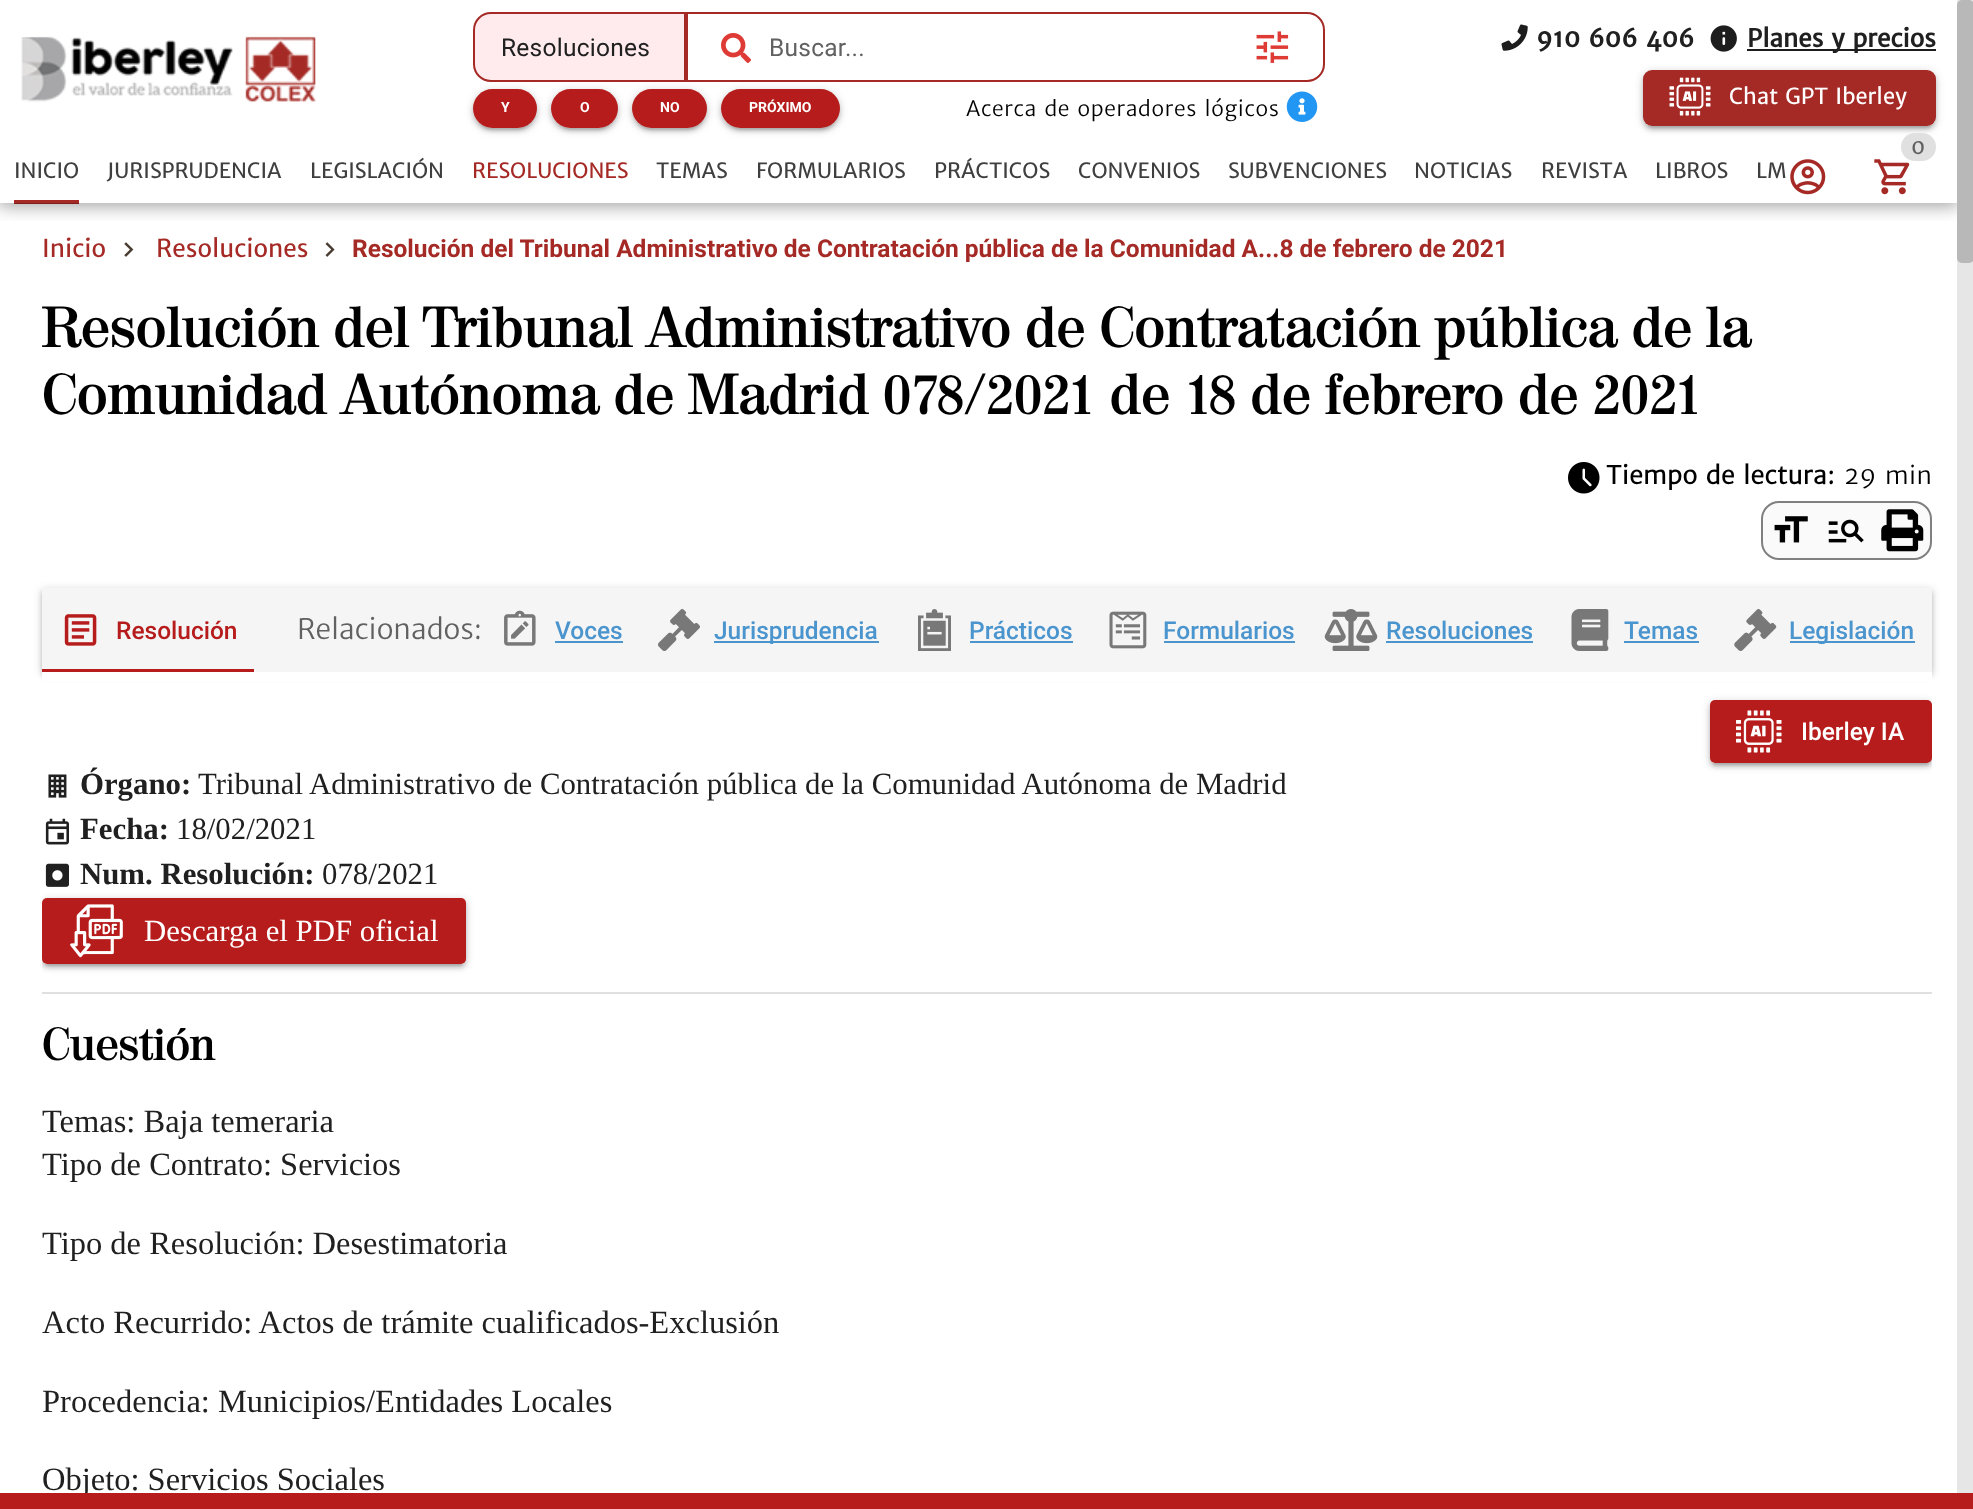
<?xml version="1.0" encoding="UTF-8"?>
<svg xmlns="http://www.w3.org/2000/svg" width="1973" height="1509">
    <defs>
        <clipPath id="clip1"><path d="M 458 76 H 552 V 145 H 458 Z M 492.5 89 H 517.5 C 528.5 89 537 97.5 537 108.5 C 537 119.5 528.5 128 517.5 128 H 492.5 C 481.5 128 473 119.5 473 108.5 C 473 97.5 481.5 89 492.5 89 Z" clip-rule="evenodd"/></clipPath>
        <filter id="blur1" x="-50%" y="-200%" width="200%" height="500%"><feGaussianBlur stdDeviation="4.5"/></filter>
        <clipPath id="clip2"><path d="M 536 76 H 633 V 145 H 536 Z M 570.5 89 H 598.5 C 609.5 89 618 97.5 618 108.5 C 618 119.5 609.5 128 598.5 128 H 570.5 C 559.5 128 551 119.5 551 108.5 C 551 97.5 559.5 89 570.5 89 Z" clip-rule="evenodd"/></clipPath>
        <clipPath id="clip3"><path d="M 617 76 H 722 V 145 H 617 Z M 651.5 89 H 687.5 C 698.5 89 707 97.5 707 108.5 C 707 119.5 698.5 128 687.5 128 H 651.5 C 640.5 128 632 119.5 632 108.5 C 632 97.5 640.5 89 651.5 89 Z" clip-rule="evenodd"/></clipPath>
        <clipPath id="clip4"><path d="M 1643 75 H 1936 V 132 H 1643 Z M 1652 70 H 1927 C 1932 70 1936 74 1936 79 V 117 C 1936 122 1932 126 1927 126 H 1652 C 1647 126 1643 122 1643 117 V 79 C 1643 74 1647 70 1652 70 Z" clip-rule="evenodd"/></clipPath>
        <filter id="blur2" x="-50%" y="-200%" width="200%" height="500%"><feGaussianBlur stdDeviation="1"/></filter>
        <clipPath id="clip5"><path d="M 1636 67 H 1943 V 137 H 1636 Z M 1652 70 H 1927 C 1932 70 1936 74 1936 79 V 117 C 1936 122 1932 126 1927 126 H 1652 C 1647 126 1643 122 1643 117 V 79 C 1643 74 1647 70 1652 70 Z" clip-rule="evenodd"/></clipPath>
        <filter id="blur3" x="-50%" y="-200%" width="200%" height="500%"><feGaussianBlur stdDeviation="2"/></filter>
        <clipPath id="clip6"><path d="M 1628 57 H 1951 V 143 H 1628 Z M 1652 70 H 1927 C 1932 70 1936 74 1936 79 V 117 C 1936 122 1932 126 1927 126 H 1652 C 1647 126 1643 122 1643 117 V 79 C 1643 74 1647 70 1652 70 Z" clip-rule="evenodd"/></clipPath>
        <clipPath id="clip7"><rect x="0" y="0" width="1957" height="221"/></clipPath>
        <clipPath id="clip8"><path d="M 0 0 H 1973 V 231 H 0 Z M 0 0 H 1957 V 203 H 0 Z" clip-rule="evenodd"/></clipPath>
        <filter id="blur4" x="-50%" y="-200%" width="200%" height="500%"><feGaussianBlur stdDeviation="9"/></filter>
        <clipPath id="clip9"><path d="M 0 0 H 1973 V 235 H 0 Z M 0 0 H 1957 V 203 H 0 Z" clip-rule="evenodd"/></clipPath>
        <clipPath id="clip10"><path d="M 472 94 H 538 V 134 H 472 Z M 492.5 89 H 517.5 C 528.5 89 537 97.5 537 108.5 C 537 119.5 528.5 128 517.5 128 H 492.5 C 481.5 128 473 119.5 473 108.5 C 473 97.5 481.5 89 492.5 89 Z" clip-rule="evenodd"/></clipPath>
        <clipPath id="clip11"><path d="M 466 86 H 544 V 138 H 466 Z M 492.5 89 H 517.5 C 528.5 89 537 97.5 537 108.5 C 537 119.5 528.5 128 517.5 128 H 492.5 C 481.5 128 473 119.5 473 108.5 C 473 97.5 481.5 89 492.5 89 Z" clip-rule="evenodd"/></clipPath>
        <clipPath id="clip12"><path d="M 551 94 H 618 V 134 H 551 Z M 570.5 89 H 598.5 C 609.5 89 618 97.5 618 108.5 C 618 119.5 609.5 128 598.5 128 H 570.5 C 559.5 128 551 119.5 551 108.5 C 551 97.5 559.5 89 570.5 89 Z" clip-rule="evenodd"/></clipPath>
        <clipPath id="clip13"><path d="M 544 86 H 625 V 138 H 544 Z M 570.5 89 H 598.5 C 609.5 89 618 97.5 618 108.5 C 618 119.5 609.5 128 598.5 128 H 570.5 C 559.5 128 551 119.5 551 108.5 C 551 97.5 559.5 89 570.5 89 Z" clip-rule="evenodd"/></clipPath>
        <clipPath id="clip14"><path d="M 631 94 H 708 V 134 H 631 Z M 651.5 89 H 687.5 C 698.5 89 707 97.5 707 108.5 C 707 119.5 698.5 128 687.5 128 H 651.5 C 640.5 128 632 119.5 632 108.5 C 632 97.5 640.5 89 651.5 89 Z" clip-rule="evenodd"/></clipPath>
        <clipPath id="clip15"><path d="M 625 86 H 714 V 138 H 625 Z M 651.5 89 H 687.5 C 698.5 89 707 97.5 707 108.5 C 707 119.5 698.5 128 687.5 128 H 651.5 C 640.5 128 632 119.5 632 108.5 C 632 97.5 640.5 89 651.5 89 Z" clip-rule="evenodd"/></clipPath>
        <clipPath id="clip16"><path d="M 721 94 H 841 V 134 H 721 Z M 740.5 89 H 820.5 C 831.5 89 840 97.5 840 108.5 C 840 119.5 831.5 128 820.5 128 H 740.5 C 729.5 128 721 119.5 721 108.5 C 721 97.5 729.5 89 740.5 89 Z" clip-rule="evenodd"/></clipPath>
        <clipPath id="clip17"><path d="M 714 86 H 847 V 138 H 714 Z M 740.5 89 H 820.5 C 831.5 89 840 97.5 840 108.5 C 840 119.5 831.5 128 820.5 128 H 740.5 C 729.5 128 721 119.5 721 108.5 C 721 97.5 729.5 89 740.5 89 Z" clip-rule="evenodd"/></clipPath>
        <clipPath id="clip18"><path d="M 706 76 H 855 V 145 H 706 Z M 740.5 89 H 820.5 C 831.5 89 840 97.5 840 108.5 C 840 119.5 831.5 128 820.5 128 H 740.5 C 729.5 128 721 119.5 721 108.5 C 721 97.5 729.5 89 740.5 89 Z" clip-rule="evenodd"/></clipPath>
        <clipPath id="clip19"><path d="M 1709 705 H 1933 V 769 H 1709 Z M 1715 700 H 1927 C 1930 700 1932 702 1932 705 V 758 C 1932 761 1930 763 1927 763 H 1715 C 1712 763 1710 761 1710 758 V 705 C 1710 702 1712 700 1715 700 Z" clip-rule="evenodd"/></clipPath>
        <clipPath id="clip20"><rect x="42" y="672" width="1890" height="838"/></clipPath>
        <clipPath id="clip21"><path d="M 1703 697 H 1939 V 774 H 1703 Z M 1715 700 H 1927 C 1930 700 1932 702 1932 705 V 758 C 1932 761 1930 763 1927 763 H 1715 C 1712 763 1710 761 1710 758 V 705 C 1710 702 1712 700 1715 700 Z" clip-rule="evenodd"/></clipPath>
        <clipPath id="clip22"><path d="M 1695 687 H 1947 V 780 H 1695 Z M 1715 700 H 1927 C 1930 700 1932 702 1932 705 V 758 C 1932 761 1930 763 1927 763 H 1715 C 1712 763 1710 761 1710 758 V 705 C 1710 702 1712 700 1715 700 Z" clip-rule="evenodd"/></clipPath>
        <clipPath id="clip23"><rect x="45" y="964" width="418" height="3"/></clipPath>
        <clipPath id="clip24"><path d="M 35 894 H 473 V 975 H 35 Z M 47 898 H 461 C 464 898 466 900 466 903 V 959 C 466 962 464 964 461 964 H 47 C 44 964 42 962 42 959 V 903 C 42 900 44 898 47 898 Z" clip-rule="evenodd"/></clipPath>
        <clipPath id="clip25"><path d="M 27 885 H 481 V 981 H 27 Z M 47 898 H 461 C 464 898 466 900 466 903 V 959 C 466 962 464 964 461 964 H 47 C 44 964 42 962 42 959 V 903 C 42 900 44 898 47 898 Z" clip-rule="evenodd"/></clipPath>
    </defs>
    <rect width="100%" height="100%" fill="#FFFFFF"/>
    <rect x="1957" y="0" width="16" height="1493" fill="#E6E6E6"/>
    <image x="21" y="36" width="295" height="66" href="img_01.png"/>
    <path d="M 491 13 H 685 V 81 H 491 C 481.5 81 474 73.5 474 64 V 30 C 474 20.5 481.5 13 491 13 Z" fill="#FFEBEE" stroke="#A52925" stroke-width="2"/>
    <path d="M 687 13 H 1307 C 1316.5 13 1324 20.5 1324 30 V 64 C 1324 73.5 1316.5 81 1307 81 H 687 Z" fill="none" stroke="#A52925" stroke-width="2"/>
    <image x="721" y="33" width="30" height="30" href="img_02.png"/>
    <image x="1256" y="31" width="33" height="32" href="img_03.png"/>
    <rect x="473" y="89" width="64" height="39" rx="19.5" fill="#B71C1C"/>
    <g clip-path="url(#clip1)">
        <rect x="473" y="91" width="64" height="39" rx="19.5" fill="#000000" fill-opacity="0.2" filter="url(#blur1)"/>
    </g>
    <rect x="551" y="89" width="67" height="39" rx="19.5" fill="#B71C1C"/>
    <g clip-path="url(#clip2)">
        <rect x="551" y="91" width="67" height="39" rx="19.5" fill="#000000" fill-opacity="0.2" filter="url(#blur1)"/>
    </g>
    <rect x="632" y="89" width="75" height="39" rx="19.5" fill="#B71C1C"/>
    <g clip-path="url(#clip3)">
        <rect x="632" y="91" width="75" height="39" rx="19.5" fill="#000000" fill-opacity="0.2" filter="url(#blur1)"/>
    </g>
    <rect x="721" y="89" width="119" height="39" rx="19.5" fill="#B71C1C"/>
    <image x="1286" y="91" width="32" height="31" href="img_04.png"/>
    <image x="1501" y="24" width="27" height="27" href="img_05.png"/>
    <image x="1710" y="25" width="27" height="27" href="img_06.png"/>
    <rect x="1747" y="49" width="189" height="2" fill="#1D1D1D"/>
    <rect x="1643" y="70" width="293" height="56" rx="9" fill="#A52925"/>
    <g clip-path="url(#clip4)">
        <rect x="1647" y="79" width="285" height="49" rx="5" fill="#000000" fill-opacity="0.12" filter="url(#blur2)"/>
    </g>
    <g clip-path="url(#clip5)">
        <rect x="1643" y="74" width="293" height="56" rx="9" fill="#000000" fill-opacity="0.14" filter="url(#blur3)"/>
    </g>
    <g clip-path="url(#clip6)">
        <rect x="1643" y="72" width="293" height="56" rx="9" fill="#000000" fill-opacity="0.2" filter="url(#blur1)"/>
    </g>
    <image x="1669" y="77" width="42" height="39" href="img_07.png"/>
    <image x="1874" y="159" width="36" height="36" href="img_08.png"/>
    <rect x="1901" y="133" width="35" height="28" rx="14" fill="#E0E0E0"/>
    <image x="1790" y="159" width="36" height="36" href="img_09.png"/>
    <rect x="14" y="200" width="65" height="4" fill="#A52925"/>
    <rect x="1957" y="0" width="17" height="263" rx="5" fill="#B8B8B8"/>
    <g clip-path="url(#clip7)">
        <g clip-path="url(#clip8)">
            <rect x="0" y="0" width="1957" height="203" fill="#000000" fill-opacity="0.24" filter="url(#blur4)"/>
        </g>
    </g>
    <g clip-path="url(#clip7)">
        <g clip-path="url(#clip9)">
            <rect x="-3" y="-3" width="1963" height="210" fill="#000000" fill-opacity="0.2" filter="url(#blur4)"/>
        </g>
    </g>
    <text x="501" y="56" font-family="Roboto" font-size="24.5" letter-spacing="0.25" fill="#202020">Resoluciones</text>
    <text x="769" y="56" font-family="Roboto" font-size="24.5" letter-spacing="0.25" fill="#616161">Buscar...</text>
    <g clip-path="url(#clip10)">
        <rect x="476" y="98" width="58" height="32" rx="16" fill="#000000" fill-opacity="0.12" filter="url(#blur2)"/>
    </g>
    <g clip-path="url(#clip11)">
        <rect x="473" y="93" width="64" height="38" rx="19" fill="#000000" fill-opacity="0.14" filter="url(#blur3)"/>
    </g>
    <text x="501" y="112" font-family="Roboto" font-size="14" font-weight="700" fill="#FFFFFF">Y</text>
    <g clip-path="url(#clip12)">
        <rect x="555" y="98" width="59" height="32" rx="16" fill="#000000" fill-opacity="0.12" filter="url(#blur2)"/>
    </g>
    <g clip-path="url(#clip13)">
        <rect x="551" y="93" width="67" height="38" rx="19" fill="#000000" fill-opacity="0.14" filter="url(#blur3)"/>
    </g>
    <text x="580" y="112" font-family="Roboto" font-size="14" font-weight="700" fill="#FFFFFF">O</text>
    <g clip-path="url(#clip14)">
        <rect x="635" y="98" width="69" height="32" rx="16" fill="#000000" fill-opacity="0.12" filter="url(#blur2)"/>
    </g>
    <g clip-path="url(#clip15)">
        <rect x="632" y="93" width="75" height="38" rx="19" fill="#000000" fill-opacity="0.14" filter="url(#blur3)"/>
    </g>
    <text x="660" y="112" font-family="Roboto" font-size="14" font-weight="700" fill="#FFFFFF">NO</text>
    <g clip-path="url(#clip16)">
        <rect x="725" y="98" width="112" height="32" rx="16" fill="#000000" fill-opacity="0.12" filter="url(#blur2)"/>
    </g>
    <g clip-path="url(#clip17)">
        <rect x="721" y="93" width="119" height="38" rx="19" fill="#000000" fill-opacity="0.14" filter="url(#blur3)"/>
    </g>
    <g clip-path="url(#clip18)">
        <rect x="721" y="91" width="119" height="39" rx="19.5" fill="#000000" fill-opacity="0.2" filter="url(#blur1)"/>
    </g>
    <text x="749" y="112" font-family="Roboto" font-size="14" font-weight="700" fill="#FFFFFF">PRÓXIMO</text>
    <text x="966" y="116" font-family="'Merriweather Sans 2'" font-size="21" letter-spacing="0.7" fill="#000000">Acerca de operadores lógicos</text>
    <text x="1536" y="47" font-family="'Merriweather Sans 2'" font-size="24.5" font-weight="700" fill="#202020">910 606 406</text>
    <text x="1747" y="47" font-family="'Merriweather Sans 2'" font-size="24.5" font-weight="700" fill="#202020">Planes y precios</text>
    <text x="1729" y="104" font-family="Merriweather Sans" font-size="22" fill="#FFFFFF">Chat GPT Iberley</text>
    <text x="1911" y="154" font-family="Merriweather Sans" font-size="21" fill="#616161">0</text>
    <text x="14" y="178" font-family="Merriweather Sans" font-size="21" fill="#3F3F3F">INICIO</text>
    <text x="107" y="178" font-family="Merriweather Sans" font-size="21" fill="#3F3F3F">JURISPRUDENCIA</text>
    <text x="310" y="178" font-family="Merriweather Sans" font-size="21" fill="#3F3F3F">LEGISLACIÓN</text>
    <text x="472" y="178" font-family="Merriweather Sans" font-size="21" fill="#A52925">RESOLUCIONES</text>
    <text x="656" y="178" font-family="Merriweather Sans" font-size="21" fill="#3F3F3F">TEMAS</text>
    <text x="756" y="178" font-family="Merriweather Sans" font-size="21" fill="#3F3F3F">FORMULARIOS</text>
    <text x="934" y="178" font-family="Merriweather Sans" font-size="21" fill="#3F3F3F">PRÁCTICOS</text>
    <text x="1078" y="178" font-family="Merriweather Sans" font-size="21" fill="#3F3F3F">CONVENIOS</text>
    <text x="1228" y="178" font-family="Merriweather Sans" font-size="21" fill="#3F3F3F">SUBVENCIONES</text>
    <text x="1414" y="178" font-family="Merriweather Sans" font-size="21" fill="#3F3F3F">NOTICIAS</text>
    <text x="1541" y="178" font-family="Merriweather Sans" font-size="21" fill="#3F3F3F">REVISTA</text>
    <text x="1655" y="178" font-family="Merriweather Sans" font-size="21" fill="#3F3F3F">LIBROS</text>
    <text x="1756" y="178" font-family="Merriweather Sans" font-size="21" fill="#3F3F3F">LM</text>
    <text x="42" y="257" font-family="Merriweather Sans" font-size="24.5" fill="#A52925">Inicio</text>
    <image x="124" y="242" width="10" height="15" href="img_10.png"/>
    <text x="156" y="257" font-family="Merriweather Sans" font-size="24.5" fill="#A52925">Resoluciones</text>
    <image x="325" y="242" width="10" height="15" href="img_11.png"/>
    <text x="352" y="257" font-family="Roboto" font-size="24.5" font-weight="700" fill="#A52925">Resolución del Tribunal Administrativo de Contratación pública de la Comunidad A...8 de febrero de 2021</text>
    <text font-family="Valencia" font-size="56" font-weight="700" fill="#000000">
        <tspan x="42" y="347">Resolución del Tribunal Administrativo de Contratación pública de la</tspan>
        <tspan x="42" y="414">Comunidad Autónoma de Madrid 078/2021 de 18 de febrero de 2021</tspan>
    </text>
    <image x="1568" y="462" width="32" height="32" href="img_12.png"/>
    <text x="1606" y="484" font-family="Merriweather Sans" font-size="24.5" font-weight="700" letter-spacing="0.4" fill="#000000">Tiempo de lectura:</text>
    <text x="1844" y="484" font-family="'Merriweather Sans 2'" font-size="24.5" letter-spacing="0.4" fill="#000000">29 min</text>
    <rect x="1762" y="502" width="169" height="57" rx="17" fill="#FAFAFA" stroke="#808080" stroke-width="2"/>
    <image x="1774" y="516" width="34" height="27" href="img_13.png"/>
    <image x="1828" y="519" width="36" height="24" href="img_14.png"/>
    <image x="1881" y="509" width="43" height="43" href="img_15.png"/>
    <rect x="42" y="592" width="1890" height="84" fill="#000000" fill-opacity="0.14" filter="url(#blur3)"/>
    <rect x="42" y="590" width="1890" height="84" fill="#000000" fill-opacity="0.2" filter="url(#blur1)"/>
    <rect x="42" y="588" width="1890" height="84" fill="#F5F5F5"/>
    <image x="64" y="614" width="33" height="32" href="img_16.png"/>
    <text x="116" y="639" font-family="Roboto" font-size="24.5" font-weight="500" fill="#B71C1C">Resolución</text>
    <rect x="42" y="669" width="212" height="3" fill="#B71C1C"/>
    <text x="297" y="639" font-family="'Merriweather Sans 2'" font-size="28" fill="#616161">Relacionados:</text>
    <image x="504" y="610" width="32" height="36" href="img_17.png"/>
    <text x="555" y="639" font-family="Roboto" font-size="24.5" font-weight="500" fill="#4B95CF">Voces</text>
    <rect x="555" y="641" width="68" height="2" fill="#4B95CF"/>
    <image x="658" y="609" width="42" height="42" href="img_18.png"/>
    <rect x="714" y="641" width="165" height="2" fill="#4B95CF"/>
    <text x="714" y="639" font-family="Roboto" font-size="24.5" font-weight="500" fill="#4B95CF">Jurisprudencia</text>
    <image x="918" y="609" width="33" height="42" href="img_19.png"/>
    <text x="969" y="639" font-family="Roboto" font-size="24.5" font-weight="500" fill="#4B95CF">Prácticos</text>
    <rect x="970" y="641" width="103" height="2" fill="#4B95CF"/>
    <image x="1109" y="611" width="38" height="38" href="img_20.png"/>
    <text x="1163" y="639" font-family="Roboto" font-size="24.5" font-weight="500" fill="#4B95CF">Formularios</text>
    <rect x="1164" y="641" width="131" height="2" fill="#4B95CF"/>
    <image x="1324" y="609" width="54" height="42" href="img_21.png"/>
    <text x="1386" y="639" font-family="Roboto" font-size="24.5" font-weight="500" fill="#4B95CF">Resoluciones</text>
    <rect x="1386" y="641" width="147" height="2" fill="#4B95CF"/>
    <image x="1571" y="609" width="38" height="42" href="img_22.png"/>
    <text x="1624" y="639" font-family="Roboto" font-size="24.5" font-weight="500" fill="#4B95CF">Temas</text>
    <rect x="1624" y="641" width="75" height="2" fill="#4B95CF"/>
    <image x="1734" y="609" width="43" height="42" href="img_23.png"/>
    <rect x="1790" y="641" width="125" height="2" fill="#4B95CF"/>
    <text x="1789" y="639" font-family="Roboto" font-size="24.5" font-weight="500" fill="#4B95CF">Legislación</text>
    <rect x="42" y="672" width="1890" height="9" fill="#FFFFFF"/>
    <rect x="1710" y="700" width="222" height="63" rx="5" fill="#B71C1C"/>
    <g clip-path="url(#clip19)">
        <rect x="1713" y="709" width="216" height="56" rx="2" fill="#000000" fill-opacity="0.12" filter="url(#blur2)"/>
    </g>
    <g clip-path="url(#clip20)">
        <g clip-path="url(#clip21)">
            <rect x="1710" y="704" width="222" height="63" rx="5" fill="#000000" fill-opacity="0.14" filter="url(#blur3)"/>
        </g>
    </g>
    <g clip-path="url(#clip20)">
        <g clip-path="url(#clip22)">
            <rect x="1710" y="702" width="222" height="63" rx="5" fill="#000000" fill-opacity="0.2" filter="url(#blur1)"/>
        </g>
    </g>
    <image x="1736" y="710" width="46" height="43" href="img_24.png"/>
    <text x="1801" y="740" font-family="Roboto" font-size="24.5" font-weight="500" fill="#FFFFFF">Iberley IA</text>
    <image x="48" y="774" width="19" height="24" href="img_25.png"/>
    <text x="80" y="794" font-family="Liberation Serif" font-size="30.8" font-weight="700" fill="#202020">Órgano:</text>
    <text x="198" y="794" font-family="Liberation Serif" font-size="30.8" fill="#202020">Tribunal Administrativo de Contratación pública de la Comunidad Autónoma de Madrid</text>
    <image x="45" y="818" width="24" height="27" href="img_26.png"/>
    <text x="80" y="839" font-family="Liberation Serif" font-size="30.8" font-weight="700" fill="#202020">Fecha:</text>
    <text x="176" y="839" font-family="Liberation Serif" font-size="30.8" fill="#202020">18/02/2021</text>
    <image x="45" y="863" width="24" height="24" href="img_27.png"/>
    <text x="80" y="884" font-family="Liberation Serif" font-size="30.8" font-weight="700" fill="#202020">Num. Resolución:</text>
    <text x="322" y="884" font-family="Liberation Serif" font-size="30.8" fill="#202020">078/2021</text>
    <rect x="42" y="898" width="424" height="66" rx="5" fill="#B71C1C"/>
    <g clip-path="url(#clip23)">
        <rect x="46" y="907" width="416" height="59" rx="2" fill="#000000" fill-opacity="0.12" filter="url(#blur2)"/>
    </g>
    <g clip-path="url(#clip20)">
        <g clip-path="url(#clip24)">
            <rect x="42" y="901" width="424" height="67" rx="5" fill="#000000" fill-opacity="0.14" filter="url(#blur3)"/>
        </g>
    </g>
    <g clip-path="url(#clip20)">
        <g clip-path="url(#clip25)">
            <rect x="42" y="900" width="424" height="66" rx="5" fill="#000000" fill-opacity="0.2" filter="url(#blur1)"/>
        </g>
    </g>
    <image x="70" y="904" width="53" height="54" href="img_28.png"/>
    <text x="144" y="941" font-family="Liberation Serif" font-size="30.8" fill="#FFFFFF">Descarga el PDF oficial</text>
    <rect x="42" y="992" width="1890" height="2" fill="#E0E0E0"/>
    <text x="42" y="1060" font-family="Valencia" font-size="45" font-weight="700" letter-spacing="-0.25" fill="#000000">Cuestión</text>
    <text font-family="Liberation Serif" font-size="32.5" fill="#202020">
        <tspan x="42" y="1132">Temas: Baja temeraria</tspan>
        <tspan x="42" y="1175">Tipo de Contrato: Servicios</tspan>
    </text>
    <text x="42" y="1254" font-family="Liberation Serif" font-size="32.5" fill="#202020">Tipo de Resolución: Desestimatoria</text>
    <text x="42" y="1333" font-family="Liberation Serif" font-size="32.5" fill="#202020">Acto Recurrido: Actos de trámite cualificados-Exclusión</text>
    <text x="42" y="1412" font-family="Liberation Serif" font-size="32.5" fill="#202020">Procedencia: Municipios/Entidades Locales</text>
    <text x="42" y="1490" font-family="Liberation Serif" font-size="32.5" fill="#202020">Objeto: Servicios Sociales</text>
    <rect x="0" y="1493" width="1973" height="16" fill="#B71C1C"/>
</svg>
